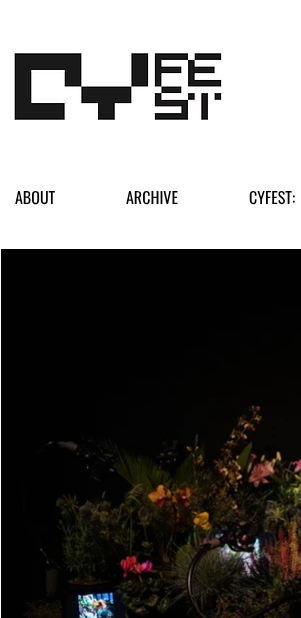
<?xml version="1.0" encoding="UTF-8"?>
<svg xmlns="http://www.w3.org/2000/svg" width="301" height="618">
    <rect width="100%" height="100%" fill="#FFFFFF"/>
    <image x="14" y="53" width="208" height="67" href="img_01.png"/>
    <text x="15" y="204" font-family="Oswald" font-size="16" fill="#000000">ABOUT</text>
    <text x="126" y="204" font-family="Oswald" font-size="16" fill="#000000">ARCHIVE</text>
    <text x="249" y="204" font-family="Oswald" font-size="16" fill="#000000">CYFEST:</text>
    <image x="1" y="249" width="300" height="369" href="img_02.png"/>
</svg>
